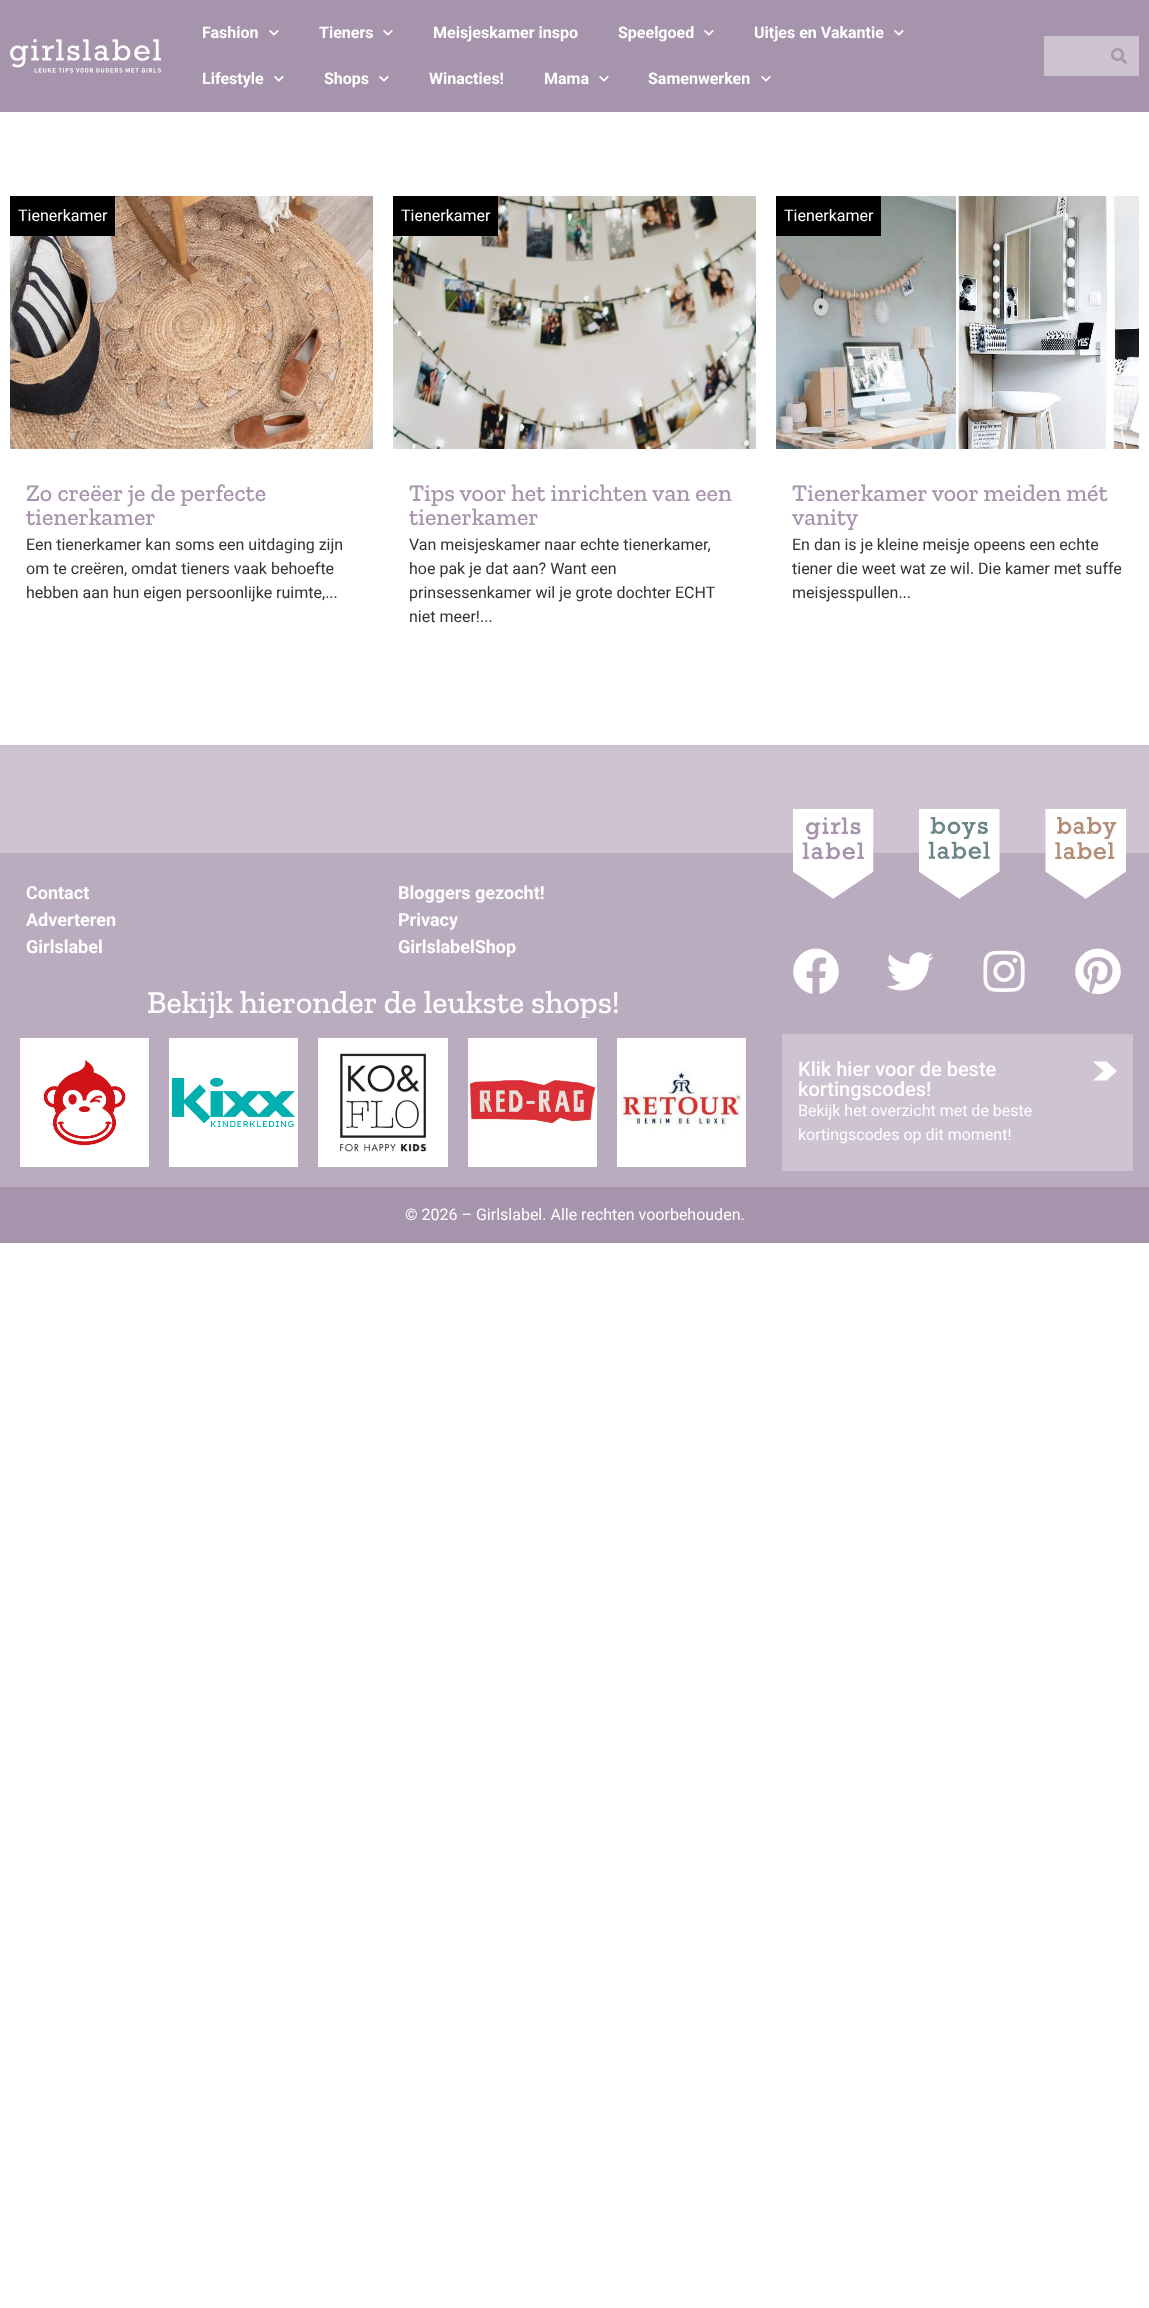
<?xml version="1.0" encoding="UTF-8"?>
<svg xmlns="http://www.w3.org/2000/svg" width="1149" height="2308">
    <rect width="100%" height="100%" fill="#FFFFFF"/>
    <rect x="0" y="0" width="1149" height="112" fill="#A694AD"/>
    <image x="10" y="39" width="151" height="34" href="img_01.png"/>
    <text x="202" y="38" font-family="Roboto" font-size="16" font-weight="700" fill="#FFFFFF">Fashion</text>
    <image x="269" y="30" width="10" height="6" href="img_02.png"/>
    <text x="319" y="38" font-family="Roboto" font-size="16" font-weight="700" fill="#FFFFFF">Tieners</text>
    <image x="383" y="30" width="10" height="6" href="img_02.png"/>
    <text x="433" y="38" font-family="Roboto" font-size="16" font-weight="700" fill="#FFFFFF">Meisjeskamer inspo</text>
    <text x="618" y="38" font-family="Roboto" font-size="16" font-weight="700" fill="#FFFFFF">Speelgoed</text>
    <image x="704" y="30" width="10" height="6" href="img_02.png"/>
    <text x="754" y="38" font-family="Roboto" font-size="16" font-weight="700" fill="#FFFFFF">Uitjes en Vakantie</text>
    <image x="894" y="30" width="10" height="6" href="img_02.png"/>
    <text x="202" y="84" font-family="Roboto" font-size="16" font-weight="700" fill="#FFFFFF">Lifestyle</text>
    <image x="274" y="76" width="10" height="6" href="img_02.png"/>
    <text x="324" y="84" font-family="Roboto" font-size="16" font-weight="700" fill="#FFFFFF">Shops</text>
    <image x="379" y="76" width="10" height="6" href="img_02.png"/>
    <text x="429" y="84" font-family="Roboto" font-size="16" font-weight="700" fill="#FFFFFF">Winacties!</text>
    <text x="544" y="84" font-family="Roboto" font-size="16" font-weight="700" fill="#FFFFFF">Mama</text>
    <image x="599" y="76" width="10" height="6" href="img_02.png"/>
    <text x="648" y="84" font-family="Roboto" font-size="16" font-weight="700" fill="#FFFFFF">Samenwerken</text>
    <image x="761" y="76" width="10" height="6" href="img_02.png"/>
    <rect x="1044" y="36" width="95" height="40" fill="#CEC4D1"/>
    <image x="1111" y="48" width="16" height="16" href="img_03.png"/>
    <image x="10" y="196" width="363" height="253" href="img_04.png"/>
    <rect x="10" y="196" width="105" height="40" fill="#000000"/>
    <text x="18" y="221" font-family="Roboto" font-size="16" fill="#FFFFFF">Tienerkamer</text>
    <text font-family="Zilla Slab" font-size="24" font-weight="500" fill="#A694AD">
        <tspan x="26" y="501">Zo creëer je de perfecte</tspan>
        <tspan x="26" y="525">tienerkamer</tspan>
    </text>
    <text font-family="Roboto" font-size="16" fill="#333333">
        <tspan x="26" y="550">Een tienerkamer kan soms een uitdaging zijn</tspan>
        <tspan x="26" y="574">om te creëren, omdat tieners vaak behoefte</tspan>
        <tspan x="26" y="598">hebben aan hun eigen persoonlijke ruimte,...</tspan>
    </text>
    <image x="393" y="196" width="363" height="253" href="img_05.png"/>
    <rect x="393" y="196" width="105" height="40" fill="#000000"/>
    <text x="401" y="221" font-family="Roboto" font-size="16" fill="#FFFFFF">Tienerkamer</text>
    <text font-family="Zilla Slab" font-size="24" font-weight="500" fill="#A694AD">
        <tspan x="409" y="501">Tips voor het inrichten van een</tspan>
        <tspan x="409" y="525">tienerkamer</tspan>
    </text>
    <text font-family="Roboto" font-size="16" fill="#333333">
        <tspan x="409" y="550">Van meisjeskamer naar echte tienerkamer,</tspan>
        <tspan x="409" y="574">hoe pak je dat aan? Want een</tspan>
        <tspan x="409" y="598">prinsessenkamer wil je grote dochter ECHT</tspan>
        <tspan x="409" y="622">niet meer!...</tspan>
    </text>
    <image x="776" y="196" width="363" height="253" href="img_06.png"/>
    <rect x="776" y="196" width="105" height="40" fill="#000000"/>
    <text x="784" y="221" font-family="Roboto" font-size="16" fill="#FFFFFF">Tienerkamer</text>
    <text font-family="Zilla Slab" font-size="24" font-weight="500" fill="#A694AD">
        <tspan x="792" y="501">Tienerkamer voor meiden mét</tspan>
        <tspan x="792" y="525">vanity</tspan>
    </text>
    <text font-family="Roboto" font-size="16" fill="#333333">
        <tspan x="792" y="550">En dan is je kleine meisje opeens een echte</tspan>
        <tspan x="792" y="574">tiener die weet wat ze wil. Die kamer met suffe</tspan>
        <tspan x="792" y="598">meisjesspullen...</tspan>
    </text>
    <rect x="0" y="745" width="1149" height="108" fill="#CEC4D1"/>
    <rect x="0" y="853" width="1149" height="165" fill="#BAACBF"/>
    <image x="793" y="809" width="81" height="90" href="img_07.png"/>
    <image x="919" y="809" width="81" height="90" href="img_08.png"/>
    <image x="1045" y="809" width="81" height="90" href="img_09.png"/>
    <text font-family="Roboto" font-size="18" font-weight="700" fill="#FFFFFF">
        <tspan x="26" y="899">Contact</tspan>
        <tspan x="26" y="926">Adverteren</tspan>
        <tspan x="26" y="953">Girlslabel</tspan>
    </text>
    <text font-family="Roboto" font-size="18" font-weight="700" fill="#FFFFFF">
        <tspan x="398" y="899">Bloggers gezocht!</tspan>
        <tspan x="398" y="926">Privacy</tspan>
        <tspan x="398" y="953">GirlslabelShop</tspan>
    </text>
    <image x="793" y="948" width="46" height="46" href="img_10.png"/>
    <image x="886" y="952" width="48" height="39" href="img_11.png"/>
    <image x="983" y="950" width="42" height="42" href="img_12.png"/>
    <image x="1075" y="948" width="46" height="47" href="img_13.png"/>
    <text x="147" y="1013" font-family="Zilla Slab" font-size="32" font-weight="500" fill="#FFFFFF">Bekijk hieronder de leukste shops!</text>
    <rect x="0" y="1187" width="1149" height="56" fill="#A694AD"/>
    <rect x="0" y="1018" width="1149" height="169" fill="#BAACBF"/>
    <image x="20" y="1038" width="129" height="129" href="img_14.png"/>
    <image x="169" y="1038" width="129" height="129" href="img_15.png"/>
    <image x="318" y="1038" width="130" height="129" href="img_16.png"/>
    <image x="468" y="1038" width="129" height="129" href="img_17.png"/>
    <image x="617" y="1038" width="129" height="129" href="img_18.png"/>
    <rect x="782" y="1034" width="351" height="137" fill="#CEC4D1"/>
    <text font-family="Roboto" font-size="20" font-weight="500" fill="#FFFFFF">
        <tspan x="798" y="1076">Klik hier voor de beste</tspan>
        <tspan x="798" y="1096">kortingscodes!</tspan>
    </text>
    <path d="M 1106.5 1061.5 H 1093 L 1103.5 1071 L 1093 1080.5 H 1106.5 L 1117 1071 Z" fill="#FFFFFF"/>
    <text font-family="Roboto" font-size="16" fill="#FFFFFF">
        <tspan x="798" y="1116">Bekijk het overzicht met de beste</tspan>
        <tspan x="798" y="1140">kortingscodes op dit moment!</tspan>
    </text>
    <text x="405" y="1220" font-family="Roboto" font-size="16" fill="#FFFFFF">© 2026 – Girlslabel. Alle rechten voorbehouden.</text>
</svg>
